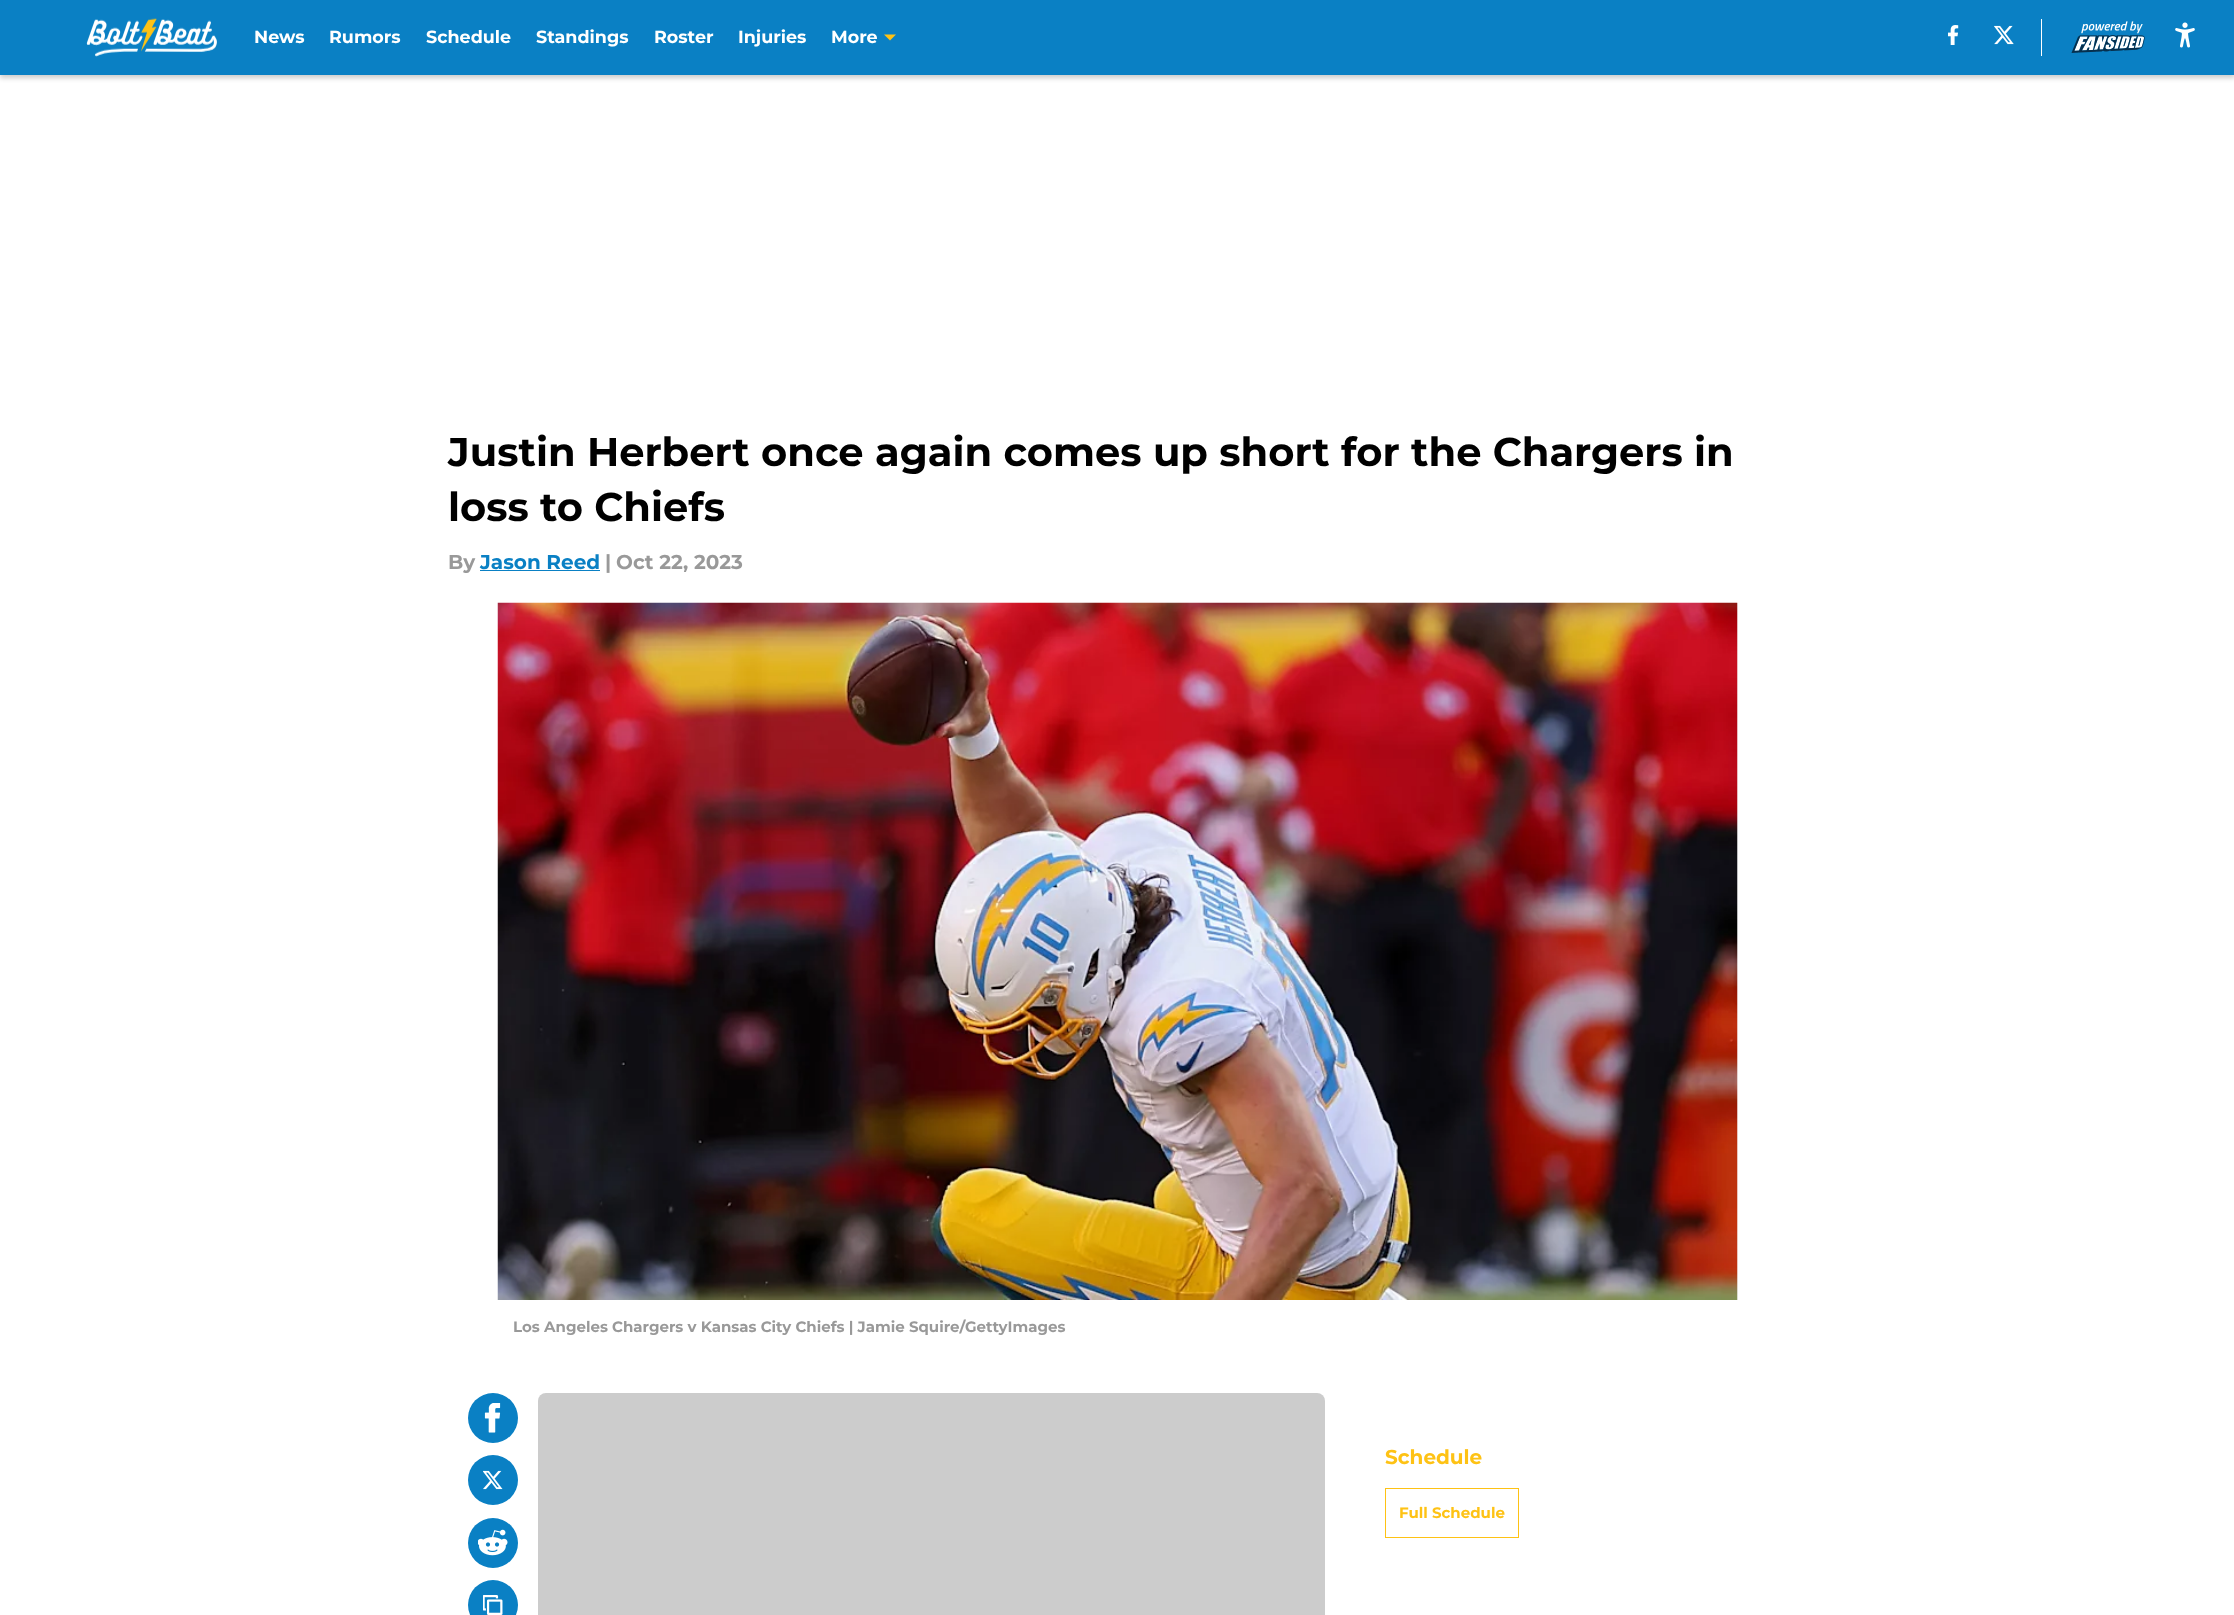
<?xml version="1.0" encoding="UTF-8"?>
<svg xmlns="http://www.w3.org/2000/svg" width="2234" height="1615">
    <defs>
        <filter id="blur1" x="-50%" y="-200%" width="200%" height="500%"><feGaussianBlur stdDeviation="2.5"/></filter>
    </defs>
    <rect width="100%" height="100%" fill="#FFFFFF"/>
    <rect x="0" y="3" width="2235" height="75" fill="#000000" fill-opacity="0.2" filter="url(#blur1)"/>
    <rect x="0" y="0" width="2234" height="75" fill="#0A80C4"/>
    <image x="86" y="18" width="131" height="39" href="img_01.png"/>
    <text x="254" y="43" font-family="Montserrat" font-size="17.5" font-weight="100" fill="#FFFFFF">News</text>
    <text x="329" y="43" font-family="Montserrat" font-size="17.5" font-weight="100" fill="#FFFFFF">Rumors</text>
    <text x="426" y="43" font-family="Montserrat" font-size="17.5" font-weight="100" fill="#FFFFFF">Schedule</text>
    <text x="536" y="43" font-family="Montserrat" font-size="17.5" font-weight="100" fill="#FFFFFF">Standings</text>
    <text x="654" y="43" font-family="Montserrat" font-size="17.5" font-weight="100" fill="#FFFFFF">Roster</text>
    <text x="738" y="43" font-family="Montserrat" font-size="17.5" font-weight="100" fill="#FFFFFF">Injuries</text>
    <text x="831" y="43" font-family="Montserrat" font-size="17.5" font-weight="100" fill="#FFFFFF">More</text>
    <path d="M 884 34.5 L 890 40.5 L 896 34.5 Z" fill="#FEC214" fill-rule="evenodd"/>
    <image x="1948" y="25" width="11" height="20" href="img_02.png"/>
    <image x="1994" y="25" width="20" height="20" href="img_03.png"/>
    <rect x="2041" y="19" width="1" height="37" fill="#FFFFFF"/>
    <image x="2071" y="21" width="74" height="32" href="img_04.png"/>
    <image x="2175" y="22" width="20" height="26" href="img_05.png"/>
    <text font-family="Montserrat" font-size="40" font-weight="100" fill="#000000">
        <tspan x="448" y="466">Justin Herbert once again comes up short for the Chargers in</tspan>
        <tspan x="448" y="521">loss to Chiefs</tspan>
    </text>
    <text x="448" y="569" font-family="Montserrat" font-size="20" font-weight="100" fill="#999999">By</text>
    <text x="480" y="569" font-family="Montserrat" font-size="20" font-weight="100" fill="#0A80C4">Jason Reed</text>
    <rect x="480" y="570" width="120" height="1" fill="#0A80C4"/>
    <text x="605" y="569" font-family="Montserrat" font-size="20" font-weight="100" fill="#999999">|</text>
    <text x="616" y="569" font-family="Montserrat" font-size="20" font-weight="100" fill="#999999">Oct 22, 2023</text>
    <rect x="1737" y="603" width="1" height="697" fill="#F7F7F7"/>
    <image x="497" y="602" width="1241" height="698" href="img_06.png"/>
    <text x="513" y="1332" font-family="Montserrat" font-size="15" font-weight="100" fill="#999999">Los Angeles Chargers v Kansas City Chiefs | Jamie Squire/GettyImages</text>
    <circle cx="493" cy="1418" r="25" fill="#0A80C4"/>
    <image x="484" y="1403" width="17" height="30" href="img_07.png"/>
    <circle cx="493" cy="1480" r="25" fill="#0A80C4"/>
    <image x="483" y="1470" width="20" height="20" href="img_08.png"/>
    <circle cx="493" cy="1543" r="25" fill="#0A80C4"/>
    <image x="478" y="1529" width="30" height="27" href="img_09.png"/>
    <circle cx="493" cy="1605" r="25" fill="#0A80C4"/>
    <image x="483" y="1595" width="20" height="20" href="img_10.png"/>
    <rect x="538" y="1393" width="787" height="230" rx="8" fill="#CCCCCC"/>
    <text x="1385" y="1464" font-family="Montserrat" font-size="20" font-weight="100" fill="#FEC214">Schedule</text>
    <rect x="1385.5" y="1488.5" width="133" height="49" fill="none" stroke="#FEC214"/>
    <text x="1399" y="1518" font-family="Montserrat" font-size="15" font-weight="100" fill="#FEC214">Full Schedule</text>
</svg>
